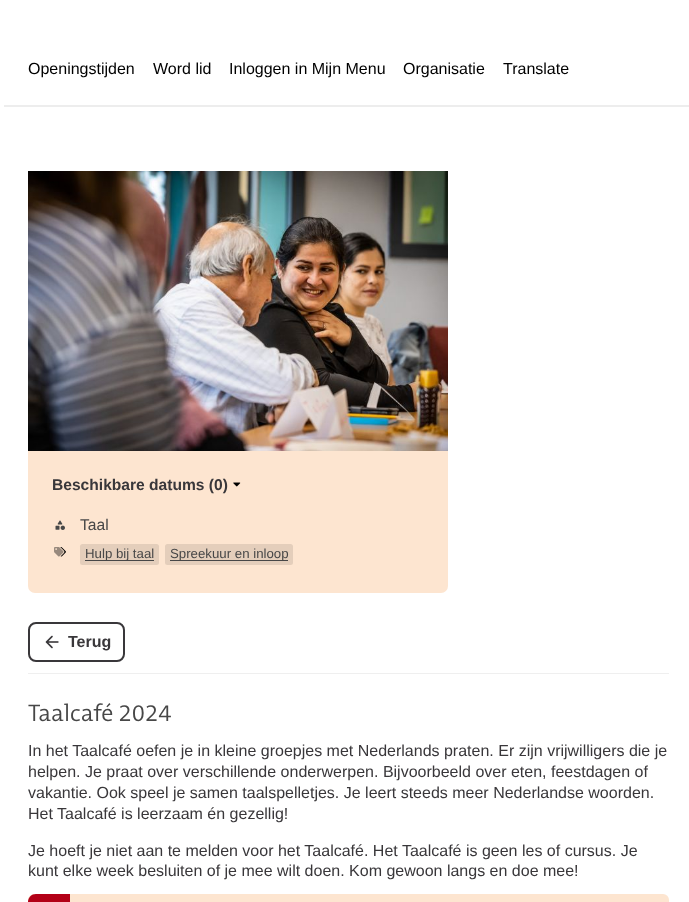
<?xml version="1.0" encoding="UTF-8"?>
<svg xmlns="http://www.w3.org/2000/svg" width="689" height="902">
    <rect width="100%" height="100%" fill="#FFFFFF"/>
    <rect x="4" y="105" width="685" height="2" fill="#EDEDED"/>
    <text x="28" y="74" font-family="Liberation Sans" font-size="16" fill="#000000">Openingstijden</text>
    <text x="153" y="74" font-family="Liberation Sans" font-size="16" fill="#000000">Word lid</text>
    <text x="229" y="74" font-family="Liberation Sans" font-size="16" fill="#000000">Inloggen in Mijn Menu</text>
    <text x="403" y="74" font-family="Liberation Sans" font-size="16" fill="#000000">Organisatie</text>
    <text x="503" y="74" font-family="Liberation Sans" font-size="16" fill="#000000">Translate</text>
    <rect x="28" y="171" width="420" height="422" rx="7" fill="#FDE5D0"/>
    <image x="28" y="171" width="420" height="280" href="img_01.png"/>
    <text x="52" y="490" font-family="Liberation Sans" font-size="15.6" font-weight="700" fill="#39373A">Beschikbare datums (0)</text>
    <image x="233" y="482" width="8" height="5" href="img_02.png"/>
    <image x="55" y="520" width="10" height="10" href="img_03.png"/>
    <text x="80" y="530" font-family="Liberation Sans" font-size="15.6" fill="#474747">Taal</text>
    <image x="54" y="547" width="12" height="10" href="img_04.png"/>
    <rect x="80" y="544" width="79" height="21" rx="2.5" fill="#E4CEBB"/>
    <rect x="85" y="560" width="69" height="1" fill="#474747"/>
    <text x="85" y="558" font-family="Liberation Sans" font-size="13.25" fill="#474747">Hulp bij taal</text>
    <rect x="165" y="544" width="128" height="21" rx="2.5" fill="#E4CEBB"/>
    <rect x="170" y="560" width="118" height="1" fill="#474747"/>
    <text x="170" y="558" font-family="Liberation Sans" font-size="13.25" fill="#474747">Spreekuur en inloop</text>
    <rect x="29" y="623" width="95" height="38" rx="7" fill="none" stroke="#39373A" stroke-width="2"/>
    <image x="45" y="635" width="14" height="14" href="img_05.png"/>
    <text x="68" y="647" font-family="Liberation Sans" font-size="16" font-weight="700" fill="#39373A">Terug</text>
    <rect x="28" y="673" width="641" height="1" fill="#EFEFEF"/>
    <text x="28" y="721" font-family="'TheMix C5'" font-size="24" font-weight="300" fill="#474747">Taalcafé 2024</text>
    <text font-family="Liberation Sans" font-size="16" fill="#39373A">
        <tspan x="28" y="756">In het Taalcafé oefen je in kleine groepjes met Nederlands praten. Er zijn vrijwilligers die je</tspan>
        <tspan x="28" y="777">helpen. Je praat over verschillende onderwerpen. Bijvoorbeeld over eten, feestdagen of</tspan>
        <tspan x="28" y="798">vakantie. Ook speel je samen taalspelletjes. Je leert steeds meer Nederlandse woorden.</tspan>
        <tspan x="28" y="819">Het Taalcafé is leerzaam én gezellig!</tspan>
    </text>
    <text font-family="Liberation Sans" font-size="16" fill="#39373A">
        <tspan x="28" y="856">Je hoeft je niet aan te melden voor het Taalcafé. Het Taalcafé is geen les of cursus. Je</tspan>
        <tspan x="28" y="876">kunt elke week besluiten of je mee wilt doen. Kom gewoon langs en doe mee!</tspan>
    </text>
    <rect x="28" y="894" width="641" height="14" rx="6" fill="#FDE5D0"/>
    <path d="M 36 894 H 70 V 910 H 36 C 31.5 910 28 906.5 28 902 C 28 897.5 31.5 894 36 894 Z" fill="#B30017"/>
</svg>
